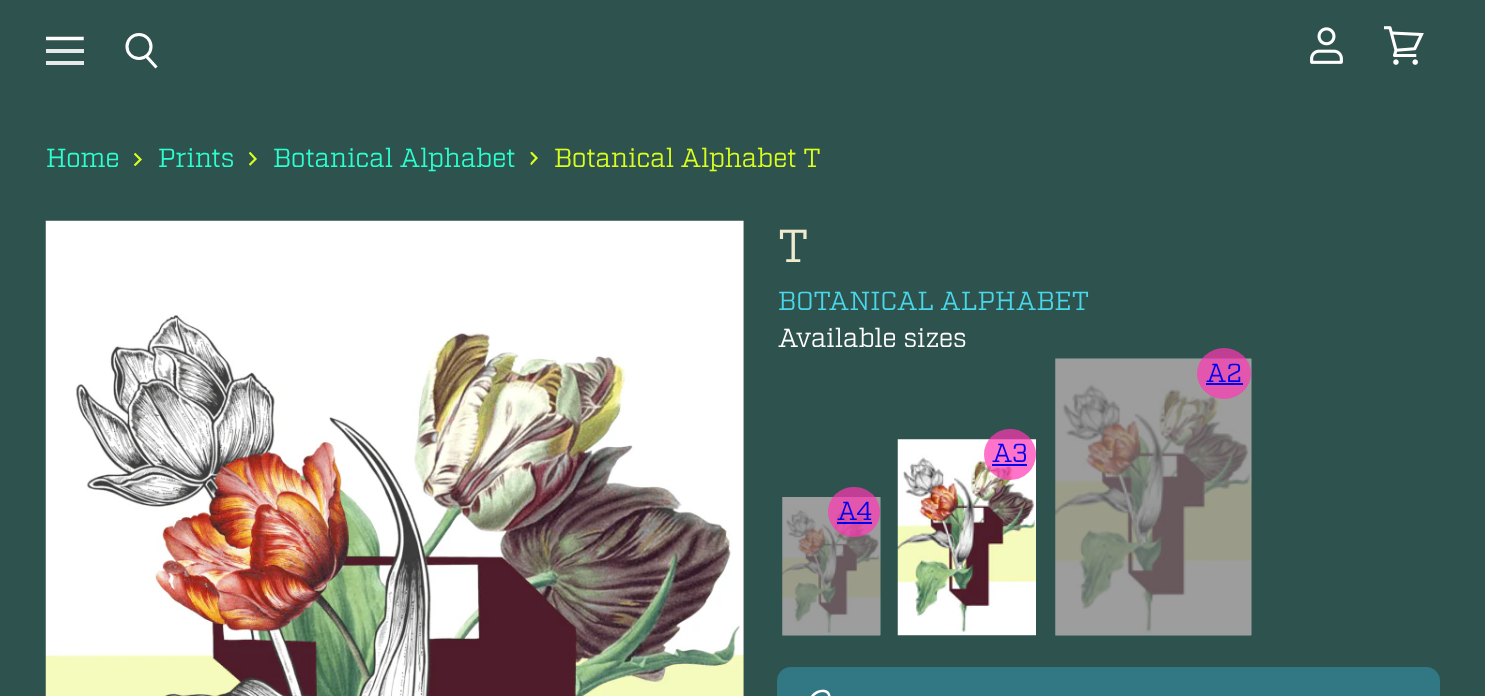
<?xml version="1.0" encoding="UTF-8"?>
<svg xmlns="http://www.w3.org/2000/svg" width="1485" height="696">
    <defs>
        <clipPath id="clip1"><rect x="46" y="35" width="38" height="32"/></clipPath>
        <clipPath id="clip2"><path d="M 134 166 V 152 H 143 V 166 Z"/></clipPath>
        <clipPath id="clip3"><path d="M 249 166 V 152 H 258 V 166 Z"/></clipPath>
        <clipPath id="clip4"><path d="M 530.5 166 V 152 H 539 V 166 Z"/></clipPath>
    </defs>
    <rect width="100%" height="100%" fill="#2E524D"/>
    <g clip-path="url(#clip1)">
        <path d="M 82 38.5 H 47" fill="none" stroke="#FFFFFF" stroke-width="3.5" stroke-linecap="square" stroke-linejoin="round"/>
    </g>
    <rect x="46" y="49" width="38" height="4" fill="#E5E9E9"/>
    <rect x="46" y="61" width="38" height="4" fill="#E5E9E9"/>
    <path d="M 156.5 67.5 L 146.5 56.5" fill="none" stroke="#FFFFFF" stroke-width="3.1"/>
    <circle cx="139" cy="46.5" r="12" fill="none" stroke="#FFFFFF" stroke-width="3.1"/>
    <image x="1310" y="27" width="33" height="37" href="img_01.png"/>
    <image x="1384" y="26" width="40" height="39" href="img_02.png"/>
    <text x="46" y="167" font-family="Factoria" font-size="26.25" fill="#2BFFCF">Home</text>
    <g clip-path="url(#clip2)">
        <path d="M 134.5 165.5 L 140.5 159.5 L 134.5 153.5" fill="none" stroke="#D9FF20" stroke-width="2.2"/>
    </g>
    <text x="158" y="167" font-family="Factoria" font-size="26.25" fill="#2BFFCF">Prints</text>
    <g clip-path="url(#clip3)">
        <path d="M 249.5 165 L 255.5 159 L 249.5 152.5" fill="none" stroke="#D9FF20" stroke-width="2.2"/>
    </g>
    <text x="273" y="167" font-family="Factoria" font-size="26.25" fill="#2BFFCF">Botanical Alphabet</text>
    <g clip-path="url(#clip4)">
        <path d="M 530.5 164.5 L 536.5 158 L 530.5 152" fill="none" stroke="#D9FF20" stroke-width="2.2"/>
    </g>
    <text x="554" y="167" font-family="Factoria" font-size="26.25" fill="#D9FF20">Botanical Alphabet T</text>
    <image x="45" y="220" width="699" height="476" href="img_03.png"/>
    <text x="778" y="262" font-family="Factoria" font-size="46" fill="#EEECCD">T</text>
    <text x="778" y="310" font-family="Factoria" font-size="26.25" letter-spacing="0.25" fill="#49D7E9">BOTANICAL ALPHABET</text>
    <text x="778" y="347" font-family="Factoria" font-size="26.25" fill="#FFFFFF">Available sizes</text>
    <image x="1055" y="358" width="197" height="278" href="img_04.png"/>
    <ellipse cx="1224" cy="373.5" rx="27" ry="25.5" fill="#FF38B3" fill-opacity="0.7"/>
    <text x="1206" y="382" font-family="Factoria" font-size="26.25" fill="#0000EE">A2</text>
    <rect x="1206" y="383" width="37" height="2" fill="#0000EE"/>
    <image x="897" y="439" width="139" height="197" href="img_05.png"/>
    <rect x="984" y="429" width="52" height="51" rx="25.5" fill="#FF38B3" fill-opacity="0.7"/>
    <text x="992" y="462" font-family="Factoria" font-size="26.25" fill="#0000EE">A3</text>
    <rect x="992" y="464" width="35" height="2" fill="#0000EE"/>
    <image x="782" y="497" width="99" height="139" href="img_06.png"/>
    <rect x="828" y="487" width="52" height="50" rx="25" fill="#FF38B3" fill-opacity="0.7"/>
    <text x="837" y="520" font-family="Factoria" font-size="26.25" fill="#0000EE">A4</text>
    <rect x="837" y="522" width="35" height="2" fill="#0000EE"/>
    <rect x="777" y="667" width="663" height="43" rx="14" fill="#327884"/>
    <image x="811" y="689" width="20" height="7" href="img_07.png"/>
</svg>
